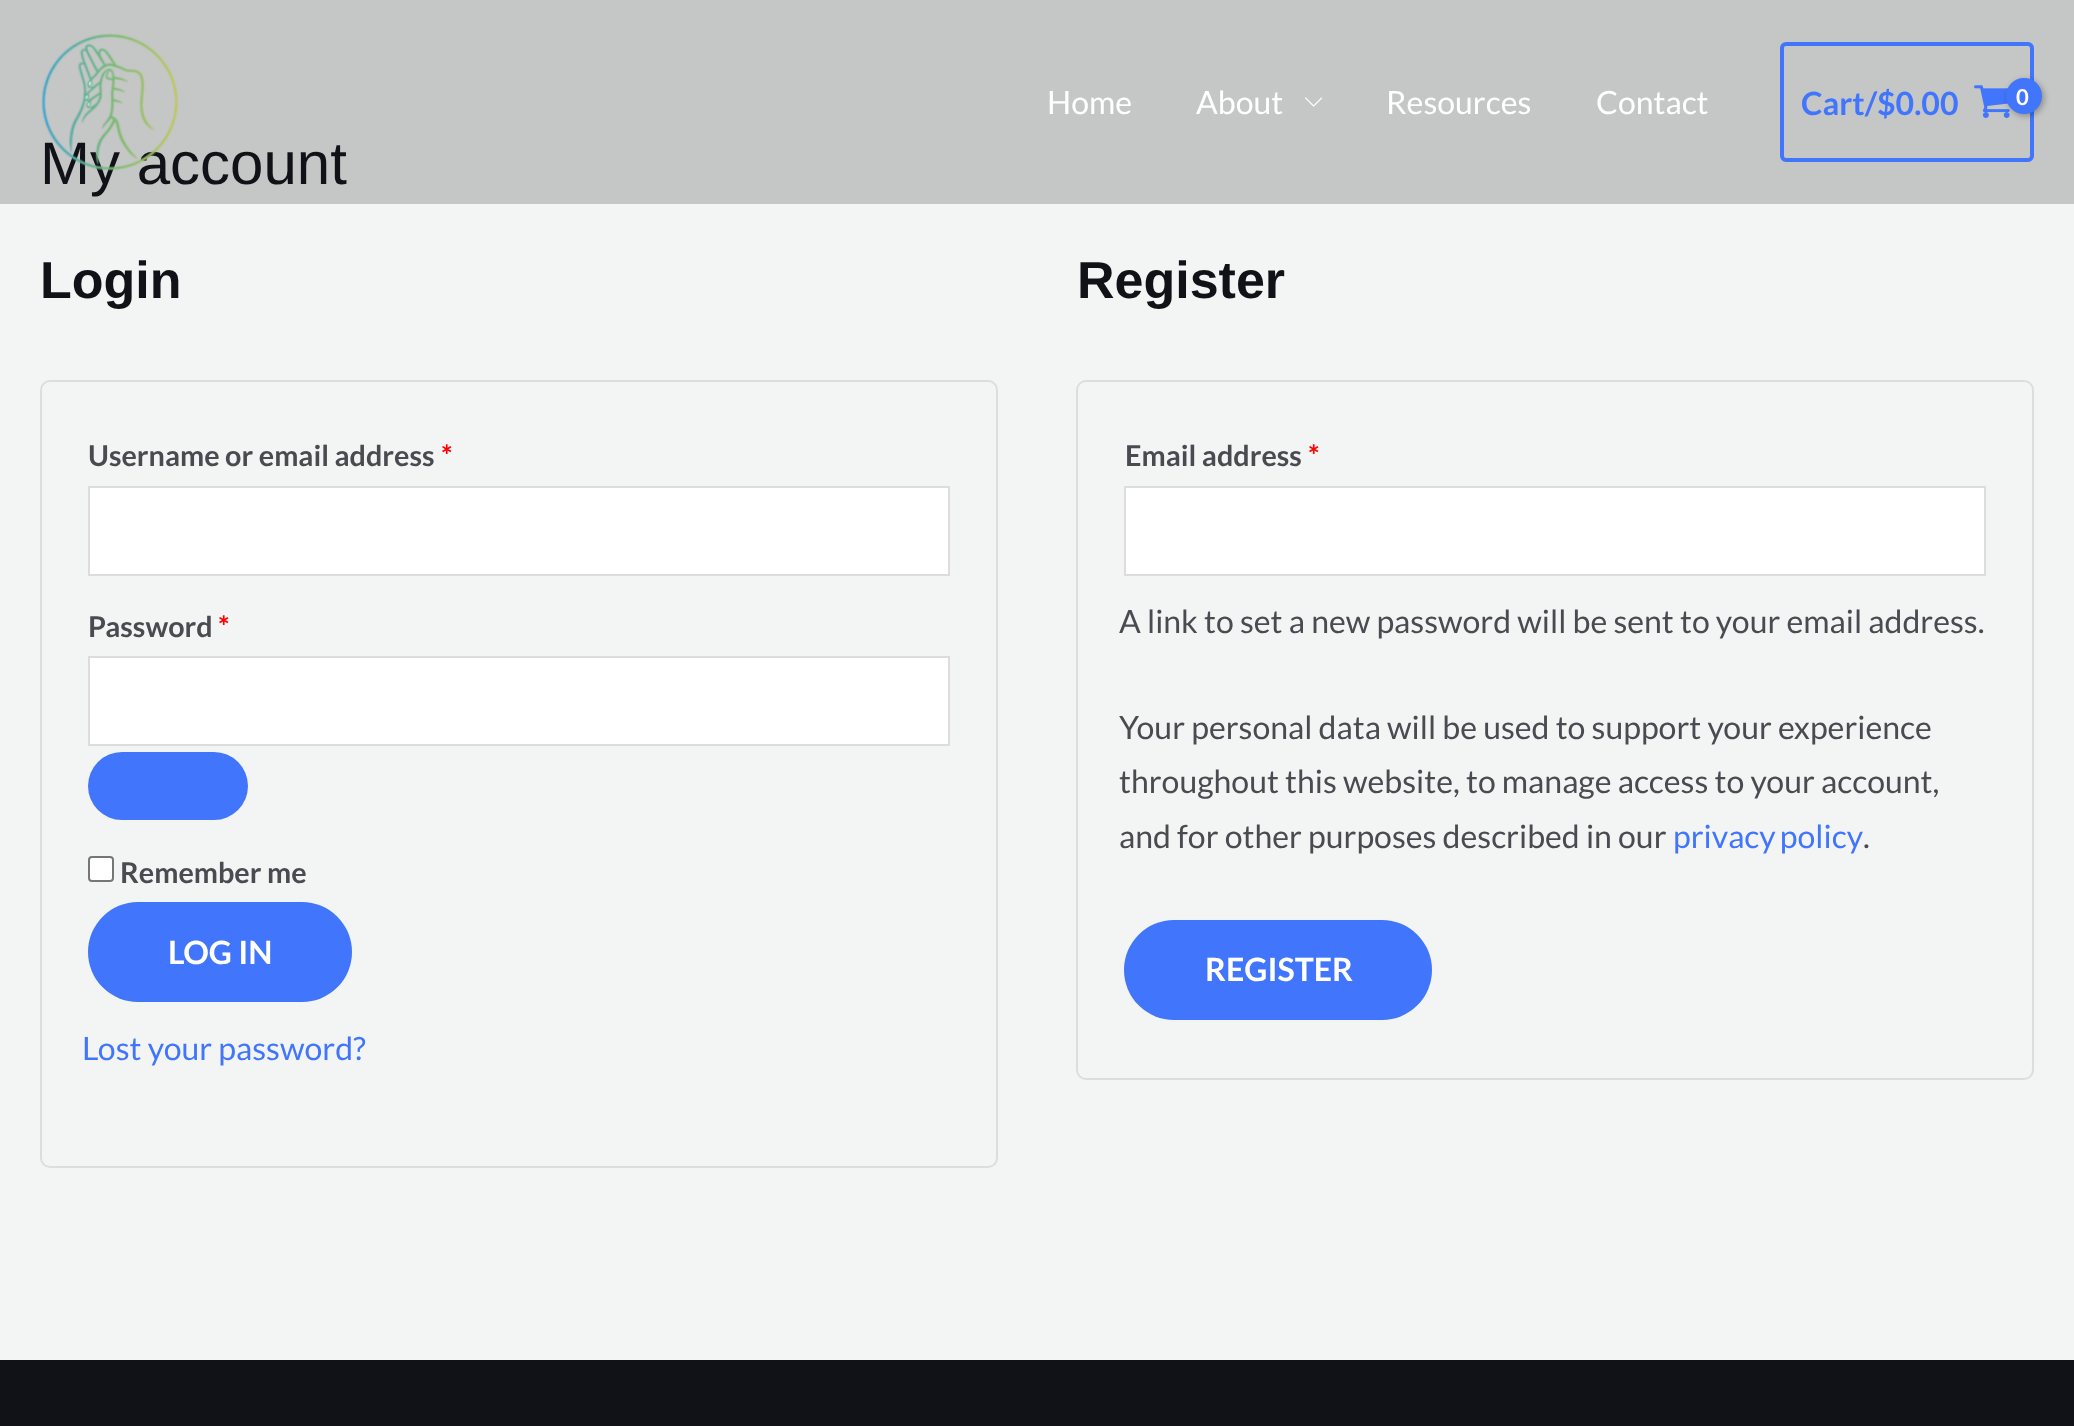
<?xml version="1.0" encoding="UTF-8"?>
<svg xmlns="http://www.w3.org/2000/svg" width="2074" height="1426">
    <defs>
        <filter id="blur1" x="-50%" y="-200%" width="200%" height="500%"><feGaussianBlur stdDeviation="3"/></filter>
    </defs>
    <rect width="100%" height="100%" fill="#F3F5F5"/>
    <rect x="0" y="0" width="2074" height="204" fill="#C5C6C6"/>
    <text x="40" y="184" font-family="Liberation Sans" font-size="60" fill="#101218">My account</text>
    <image x="41" y="33" width="138" height="138" href="img_01.png"/>
    <text x="1047" y="114" font-family="Lato" font-size="32" fill="#FFFFFF">Home</text>
    <text x="1196" y="114" font-family="Lato" font-size="32" fill="#FFFFFF">About</text>
    <image x="1305" y="97" width="17" height="10" href="img_02.png"/>
    <text x="1386" y="114" font-family="Lato" font-size="32" fill="#FFFFFF">Resources</text>
    <text x="1596" y="114" font-family="Lato" font-size="32" fill="#FFFFFF">Contact</text>
    <rect x="1782" y="44" width="250" height="116" rx="4" fill="none" stroke="#4175FC" stroke-width="4"/>
    <text x="1801" y="115" font-family="Lato" font-size="32" font-weight="700" fill="#4175FC">Cart/$0.00</text>
    <image x="1974" y="85" width="36" height="33" href="img_03.png"/>
    <rect x="2008" y="80" width="36" height="36" rx="18" fill="#000000" fill-opacity="0.3" filter="url(#blur1)"/>
    <circle cx="2024" cy="96" r="18" fill="#4175FC"/>
    <text x="2016" y="105" font-family="Lato" font-size="22" font-weight="700" letter-spacing="-1" fill="#FFFFFF">0</text>
    <text x="40" y="298" font-family="Liberation Sans" font-size="52" font-weight="700" fill="#101218">Login</text>
    <rect x="41" y="381" width="956" height="786" rx="9" fill="none" stroke="#DDDDDD" stroke-width="2"/>
    <text x="88" y="466" font-family="Lato" font-size="28.75" font-weight="700" fill="#494B51">Username or email address</text>
    <text x="441" y="466" font-family="Lato" font-size="28.75" font-weight="700" fill="#FF0000">*</text>
    <rect x="89" y="487" width="860" height="88" fill="#FFFFFF" stroke="#DDDDDD" stroke-width="2"/>
    <text x="88" y="637" font-family="Lato" font-size="28.75" font-weight="700" fill="#494B51">Password</text>
    <text x="218" y="637" font-family="Lato" font-size="28.75" font-weight="700" fill="#FF0000">*</text>
    <rect x="89" y="657" width="860" height="88" fill="#FFFFFF" stroke="#DDDDDD" stroke-width="2"/>
    <rect x="88" y="752" width="160" height="68" rx="34" fill="#4175FC"/>
    <rect x="89" y="857" width="24" height="24" rx="3" fill="#FFFFFF" stroke="#767676" stroke-width="2"/>
    <text x="120" y="883" font-family="Lato" font-size="28.75" font-weight="700" fill="#494B51">Remember me</text>
    <rect x="88" y="902" width="264" height="100" rx="50" fill="#4175FC"/>
    <text x="168" y="964" font-family="Lato" font-size="32" font-weight="700" fill="#FFFFFF">LOG IN</text>
    <text x="82" y="1060" font-family="Lato" font-size="32" fill="#4175FC">Lost your password?</text>
    <text x="1077" y="298" font-family="Liberation Sans" font-size="52" font-weight="700" fill="#101218">Register</text>
    <rect x="1077" y="381" width="956" height="698" rx="9" fill="none" stroke="#DDDDDD" stroke-width="2"/>
    <text x="1125" y="466" font-family="Lato" font-size="28.75" font-weight="700" fill="#494B51">Email address</text>
    <text x="1308" y="466" font-family="Lato" font-size="28.75" font-weight="700" fill="#FF0000">*</text>
    <rect x="1125" y="487" width="860" height="88" fill="#FFFFFF" stroke="#DDDDDD" stroke-width="2"/>
    <text x="1119" y="633" font-family="Lato" font-size="32" fill="#494B51">A link to set a new password will be sent to your email address.</text>
    <text font-family="Lato" font-size="32" fill="#494B51">
        <tspan x="1119" y="739">Your personal data will be used to support your experience</tspan>
        <tspan x="1119" y="793">throughout this website, to manage access to your account,</tspan>
        <tspan x="1119" y="848">and for other purposes described in our</tspan>
    </text>
    <text x="1673" y="848" word-spacing="-2" font-family="Lato" font-size="32" fill="#4175FC">privacy policy</text>
    <text x="1863" y="848" font-family="Lato" font-size="32" fill="#494B51">.</text>
    <rect x="1124" y="920" width="308" height="100" rx="50" fill="#4175FC"/>
    <text x="1205" y="981" font-family="Lato" font-size="32" font-weight="700" fill="#FFFFFF">REGISTER</text>
    <rect x="0" y="1360" width="2074" height="66" fill="#101218"/>
</svg>
